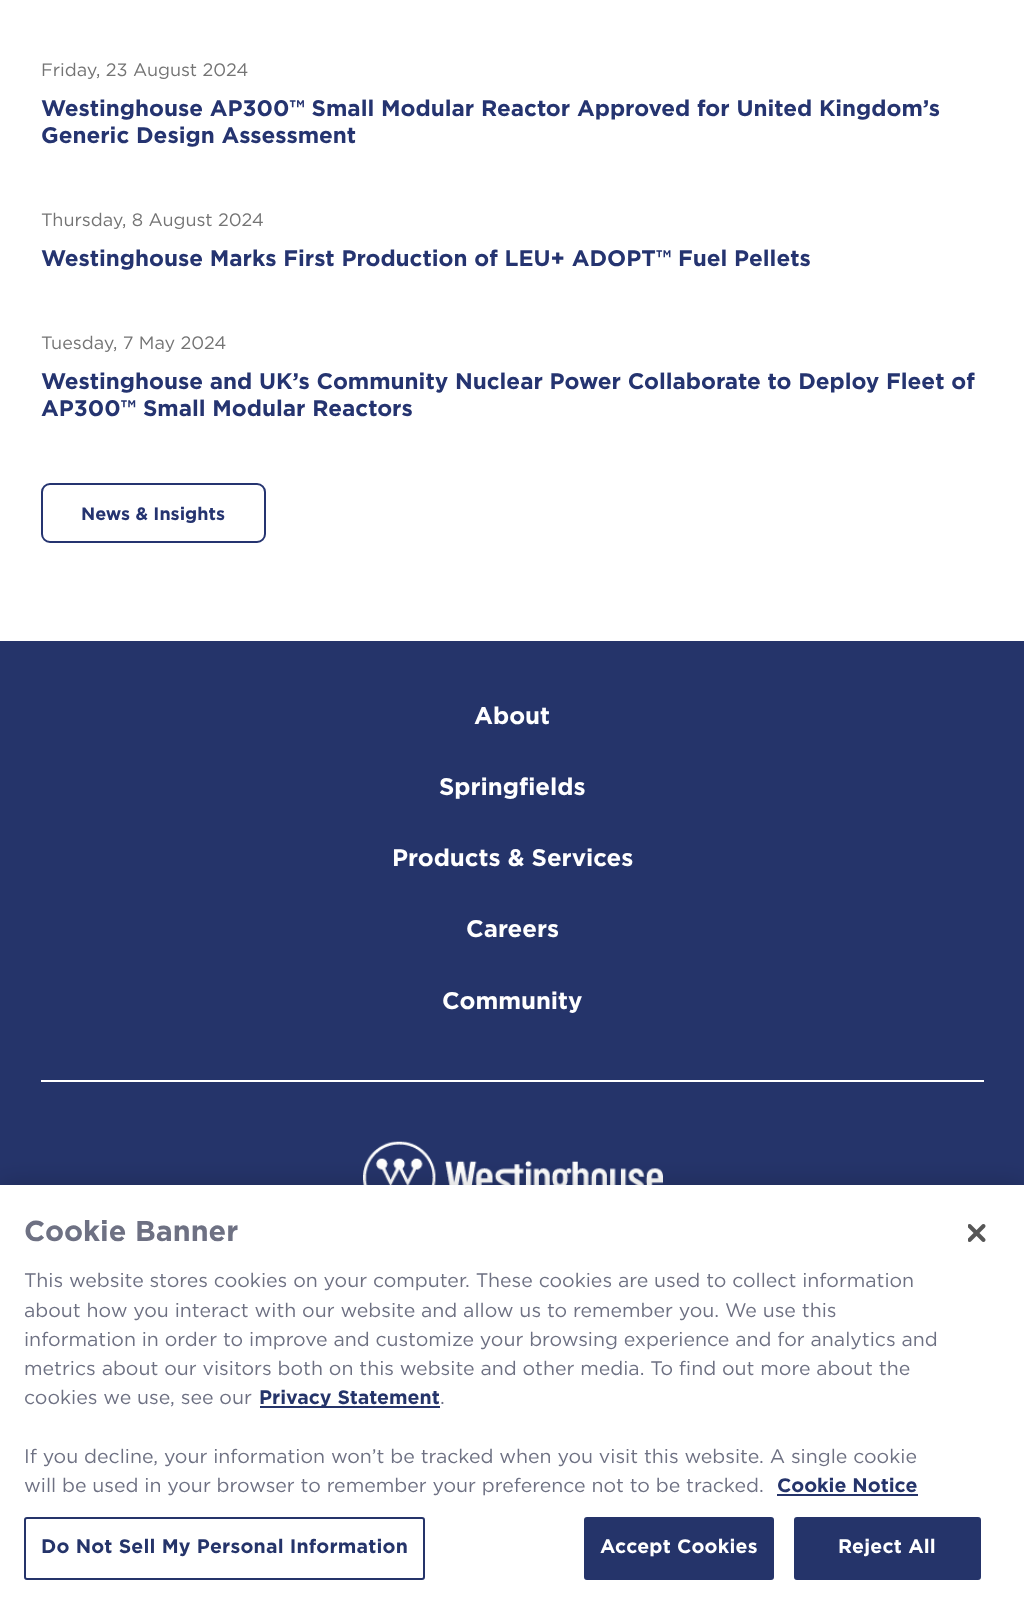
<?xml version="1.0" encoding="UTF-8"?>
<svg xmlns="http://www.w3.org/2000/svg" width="1024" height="1611">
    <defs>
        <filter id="blur1" x="-50%" y="-200%" width="200%" height="500%"><feGaussianBlur stdDeviation="13.5"/></filter>
    </defs>
    <rect width="100%" height="100%" fill="#FFFFFF"/>
    <text x="41" y="76" font-family="Gotham" font-size="18" fill="#747474">Friday, 23 August 2024</text>
    <text font-family="Gotham" font-size="22.5" font-weight="700" fill="#253470">
        <tspan x="41" y="116">Westinghouse AP300™ Small Modular Reactor Approved for United Kingdom’s</tspan>
        <tspan x="41" y="143">Generic Design Assessment</tspan>
    </text>
    <text x="41" y="226" font-family="Gotham" font-size="18" fill="#747474">Thursday, 8 August 2024</text>
    <text x="41" y="266" font-family="Gotham" font-size="22.5" font-weight="700" fill="#253470">Westinghouse Marks First Production of LEU+ ADOPT™ Fuel Pellets</text>
    <text x="41" y="349" font-family="Gotham" font-size="18" fill="#747474">Tuesday, 7 May 2024</text>
    <text font-family="Gotham" font-size="22.5" font-weight="700" fill="#253470">
        <tspan x="41" y="389">Westinghouse and UK’s Community Nuclear Power Collaborate to Deploy Fleet of</tspan>
        <tspan x="41" y="416">AP300™ Small Modular Reactors</tspan>
    </text>
    <rect x="42" y="484" width="223" height="58" rx="8" fill="none" stroke="#253470" stroke-width="2"/>
    <text x="81" y="520" font-family="Gotham" font-size="18" font-weight="700" fill="#253470">News &amp; Insights</text>
    <rect x="0" y="641" width="1024" height="544" fill="#25346A"/>
    <text x="474" y="724" font-family="Gotham" font-size="24" font-weight="700" fill="#FFFFFF">About</text>
    <text x="439" y="795" font-family="Gotham" font-size="24" font-weight="700" fill="#FFFFFF">Springfields</text>
    <text x="392" y="866" font-family="Gotham" font-size="24" font-weight="700" fill="#FFFFFF">Products &amp; Services</text>
    <text x="466" y="937" font-family="Gotham" font-size="24" font-weight="700" fill="#FFFFFF">Careers</text>
    <text x="442" y="1009" font-family="Gotham" font-size="24" font-weight="700" fill="#FFFFFF">Community</text>
    <rect x="41" y="1080" width="943" height="2" fill="#FFFFFF"/>
    <image x="363" y="1141" width="300" height="44" href="img_01.png"/>
    <rect x="0" y="1185" width="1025" height="426" fill="#000000" fill-opacity="0.2" filter="url(#blur1)"/>
    <rect x="0" y="1185" width="1024" height="426" fill="#FFFFFF"/>
    <text x="24" y="1241" font-family="Gotham" font-size="28.75" font-weight="700" fill="#6E7183">Cookie Banner</text>
    <text font-family="Gotham" font-size="19.5" fill="#6E7183">
        <tspan x="24" y="1287">This website stores cookies on your computer. These cookies are used to collect information</tspan>
        <tspan x="24" y="1317">about how you interact with our website and allow us to remember you. We use this</tspan>
        <tspan x="24" y="1346">information in order to improve and customize your browsing experience and for analytics and</tspan>
        <tspan x="24" y="1375">metrics about our visitors both on this website and other media. To find out more about the</tspan>
        <tspan x="24" y="1404">cookies we use, see our</tspan>
    </text>
    <rect x="260" y="1406" width="180" height="2" fill="#25346A"/>
    <text x="259" y="1404" font-family="Gotham" font-size="19.5" font-weight="700" fill="#25346A">Privacy Statement</text>
    <text x="440" y="1404" font-family="Gotham" font-size="19.5" fill="#6E7183">.</text>
    <text font-family="Gotham" font-size="19.5" fill="#6E7183">
        <tspan x="24" y="1463">If you decline, your information won’t be tracked when you visit this website. A single cookie</tspan>
        <tspan x="24" y="1492">will be used in your browser to remember your preference not to be tracked.</tspan>
    </text>
    <text x="777" y="1492" font-family="Gotham" font-size="19.5" font-weight="700" fill="#25346A">Cookie Notice</text>
    <rect x="777" y="1494" width="141" height="2" fill="#25346A"/>
    <rect x="25" y="1518" width="399" height="61" rx="2" fill="none" stroke="#25346A" stroke-width="2"/>
    <text x="41" y="1553" font-family="Gotham" font-size="19.5" font-weight="700" letter-spacing="0.2" fill="#25346A">Do Not Sell My Personal Information</text>
    <rect x="585" y="1518" width="188" height="61" rx="2" fill="#25346A" stroke="#25346A" stroke-width="2"/>
    <text x="600" y="1553" font-family="Gotham" font-size="19.5" font-weight="700" letter-spacing="0.2" fill="#FFFFFF">Accept Cookies</text>
    <rect x="795" y="1518" width="185" height="61" rx="2" fill="#25346A" stroke="#25346A" stroke-width="2"/>
    <text x="838" y="1553" font-family="Gotham" font-size="19.5" font-weight="700" letter-spacing="0.2" fill="#FFFFFF">Reject All</text>
    <image x="968" y="1224" width="18" height="18" href="img_02.png"/>
</svg>
